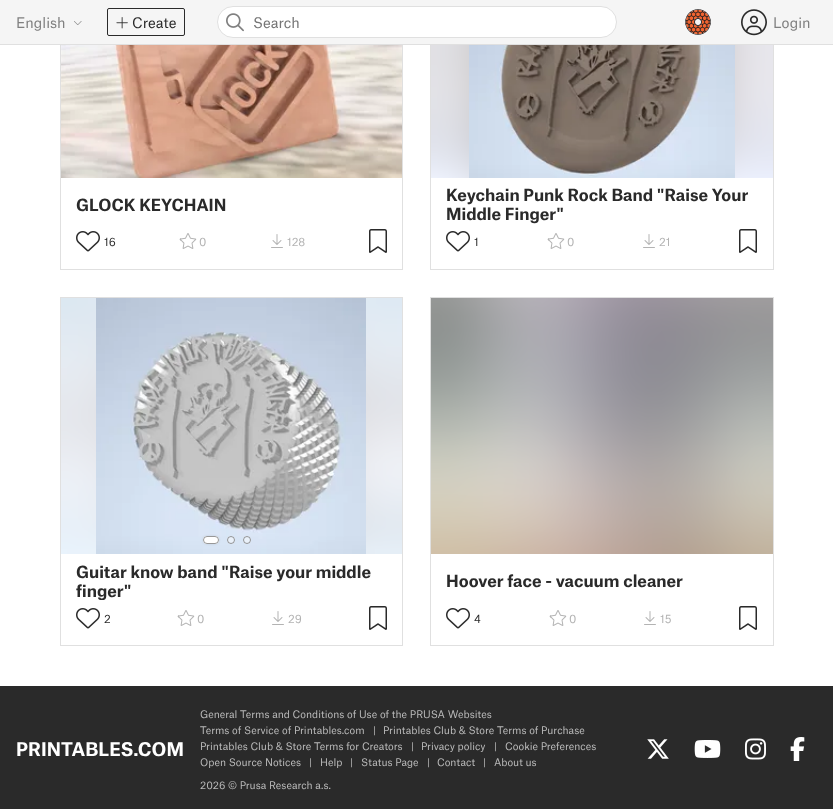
<?xml version="1.0" encoding="UTF-8"?>
<svg xmlns="http://www.w3.org/2000/svg" width="833" height="809">
    <defs>
        <filter id="blur1" x="-50%" y="-200%" width="200%" height="500%"><feGaussianBlur stdDeviation="1.5"/></filter>
        <clipPath id="clip1"><rect x="76" y="562" width="311" height="38"/></clipPath>
    </defs>
    <rect width="100%" height="100%" fill="#FFFFFF"/>
    <rect x="60.5" y="-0.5" width="342" height="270" fill="none" stroke="#E0E0E0"/>
    <rect x="430.5" y="-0.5" width="343" height="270" fill="none" stroke="#E0E0E0"/>
    <rect x="0" y="0" width="833" height="44" fill="#F5F5F5"/>
    <text x="16" y="28" font-family="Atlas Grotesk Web" font-size="14" fill="#808080">English</text>
    <image x="74" y="21" width="8" height="4" href="img_01.png"/>
    <rect x="107.5" y="8.5" width="77" height="27" rx="1.5" fill="none" stroke="#2A2A2A"/>
    <image x="116" y="17" width="12" height="12" href="img_02.png"/>
    <text x="132" y="28" font-family="Atlas Grotesk Web" font-size="14" fill="#2A2A2A">Create</text>
    <rect x="217.5" y="6.5" width="399" height="31" rx="15.5" fill="#FFFFFF" stroke="#E0E0E0"/>
    <image x="226" y="13" width="18" height="19" href="img_03.png"/>
    <text x="253" y="28" font-family="Atlas Grotesk Web" font-size="14" fill="#757575">Search</text>
    <image x="685" y="9" width="26" height="26" href="img_04.png"/>
    <image x="741" y="9" width="26" height="27" href="img_05.png"/>
    <text x="773" y="28" font-family="Atlas Grotesk Web" font-size="14" fill="#808080">Login</text>
    <rect x="0" y="44" width="833" height="1" fill="#E0E0E0"/>
    <image x="61" y="45" width="341" height="133" href="img_06.png"/>
    <text x="76" y="211" font-family="Atlas Grotesk Web" font-size="16" font-weight="700" fill="#2A2A2A">GLOCK KEYCHAIN</text>
    <image x="76" y="231" width="24" height="21" href="img_07.png"/>
    <text x="104" y="246" font-family="Atlas Grotesk Web" font-size="11" fill="#2A2A2A">16</text>
    <image x="179" y="233" width="18" height="16" href="img_08.png"/>
    <image x="179" y="238" width="2" height="3" href="img_09.png"/>
    <text x="199" y="246" font-family="Atlas Grotesk Web" font-size="11" fill="#B3B3B3">0</text>
    <image x="271" y="234" width="12" height="14" href="img_10.png"/>
    <text x="287" y="246" font-family="Atlas Grotesk Web" font-size="11" fill="#B3B3B3">128</text>
    <image x="369" y="229" width="18" height="24" href="img_11.png"/>
    <image x="431" y="45" width="342" height="133" href="img_12.png"/>
    <image x="469" y="45" width="266" height="133" href="img_13.png"/>
    <text font-family="Atlas Grotesk Web" font-size="16" font-weight="700" fill="#2A2A2A">
        <tspan x="446" y="201">Keychain Punk Rock Band "Raise Your</tspan>
        <tspan x="446" y="220">Middle Finger"</tspan>
    </text>
    <image x="446" y="231" width="24" height="21" href="img_07.png"/>
    <text x="474" y="246" font-family="Atlas Grotesk Web" font-size="11" fill="#2A2A2A">1</text>
    <image x="547" y="233" width="18" height="16" href="img_08.png"/>
    <image x="547" y="238" width="2" height="3" href="img_09.png"/>
    <text x="567" y="246" font-family="Atlas Grotesk Web" font-size="11" fill="#B3B3B3">0</text>
    <image x="643" y="234" width="12" height="14" href="img_10.png"/>
    <text x="659" y="246" font-family="Atlas Grotesk Web" font-size="11" fill="#B3B3B3">21</text>
    <image x="739" y="229" width="18" height="24" href="img_11.png"/>
    <rect x="60.5" y="297.5" width="342" height="348" fill="none" stroke="#E0E0E0"/>
    <image x="61" y="298" width="341" height="256" href="img_14.png"/>
    <image x="96" y="298" width="270" height="256" href="img_15.png"/>
    <rect x="204" y="537" width="14" height="6" rx="3" fill="#2A2A2A" fill-opacity="0.27" filter="url(#blur1)"/>
    <rect x="203" y="536" width="16" height="8" rx="4" fill="#FFFFFF"/>
    <rect x="203.5" y="536.5" width="15" height="7" rx="3.5" fill="none" stroke="#666666" stroke-opacity="0.67"/>
    <circle cx="231" cy="540" r="4" fill="#FFFFFF" fill-opacity="0.47"/>
    <circle cx="231" cy="540" r="3.5" fill="none" stroke="#666666" stroke-opacity="0.67"/>
    <circle cx="247" cy="540" r="4" fill="#FFFFFF" fill-opacity="0.47"/>
    <circle cx="247" cy="540" r="3.5" fill="none" stroke="#666666" stroke-opacity="0.67"/>
    <text x="76" y="578" font-family="Atlas Grotesk Web" font-size="16" font-weight="700" fill="#2A2A2A">Guitar know band "Raise your middle</text>
    <g clip-path="url(#clip1)">
        <text x="76" y="597" font-family="Atlas Grotesk Web" font-size="16" font-weight="700" fill="#2A2A2A">finger"</text>
    </g>
    <image x="76" y="608" width="24" height="21" href="img_07.png"/>
    <text x="104" y="623" font-family="Atlas Grotesk Web" font-size="11" fill="#2A2A2A">2</text>
    <image x="177" y="610" width="18" height="16" href="img_08.png"/>
    <image x="177" y="615" width="2" height="3" href="img_09.png"/>
    <text x="197" y="623" font-family="Atlas Grotesk Web" font-size="11" fill="#B3B3B3">0</text>
    <image x="272" y="611" width="12" height="14" href="img_10.png"/>
    <text x="288" y="623" font-family="Atlas Grotesk Web" font-size="11" fill="#B3B3B3">29</text>
    <image x="369" y="606" width="18" height="24" href="img_11.png"/>
    <rect x="430.5" y="297.5" width="343" height="348" fill="none" stroke="#E0E0E0"/>
    <image x="431" y="298" width="342" height="256" href="img_16.png"/>
    <text x="446" y="587" font-family="Atlas Grotesk Web" font-size="16" font-weight="700" fill="#2A2A2A">Hoover face - vacuum cleaner</text>
    <image x="446" y="608" width="24" height="21" href="img_07.png"/>
    <text x="474" y="623" font-family="Atlas Grotesk Web" font-size="11" fill="#2A2A2A">4</text>
    <image x="549" y="610" width="18" height="16" href="img_08.png"/>
    <image x="549" y="615" width="2" height="3" href="img_09.png"/>
    <text x="569" y="623" font-family="Atlas Grotesk Web" font-size="11" fill="#B3B3B3">0</text>
    <image x="644" y="611" width="12" height="14" href="img_10.png"/>
    <text x="660" y="623" font-family="Atlas Grotesk Web" font-size="11" fill="#B3B3B3">15</text>
    <image x="739" y="606" width="18" height="24" href="img_11.png"/>
    <rect x="0" y="686" width="833" height="123" fill="#2A2A2A"/>
    <text x="16" y="756" font-family="Atlas Grotesk Web" font-size="18" font-weight="700" fill="#FFFFFF">PRINTABLES.COM</text>
    <text font-family="Atlas Grotesk Web" font-size="10" fill="#BABABA">
        <tspan x="200" y="718">General Terms and Conditions of Use of the PRUSA Websites</tspan>
        <tspan x="200" y="734">Terms of Service of Printables.com</tspan>
    </text>
    <text x="373" y="734" font-family="Atlas Grotesk Web" font-size="10" fill="#BABABA">|</text>
    <text x="383" y="734" font-family="Atlas Grotesk Web" font-size="10" fill="#BABABA">Printables Club &amp; Store Terms of Purchase</text>
    <text x="200" y="750" font-family="Atlas Grotesk Web" font-size="10" fill="#BABABA">Printables Club &amp; Store Terms for Creators</text>
    <text x="411" y="750" font-family="Atlas Grotesk Web" font-size="10" fill="#BABABA">|</text>
    <text x="421" y="750" font-family="Atlas Grotesk Web" font-size="10" fill="#BABABA">Privacy policy</text>
    <text x="494" y="750" font-family="Atlas Grotesk Web" font-size="10" fill="#BABABA">|</text>
    <text x="505" y="750" font-family="Atlas Grotesk Web" font-size="10" fill="#BABABA">Cookie Preferences</text>
    <text x="200" y="766" font-family="Atlas Grotesk Web" font-size="10" fill="#BABABA">Open Source Notices</text>
    <text x="309" y="766" font-family="Atlas Grotesk Web" font-size="10" fill="#BABABA">|</text>
    <text x="320" y="766" font-family="Atlas Grotesk Web" font-size="10" fill="#BABABA">Help</text>
    <text x="350" y="766" font-family="Atlas Grotesk Web" font-size="10" fill="#BABABA">|</text>
    <text x="361" y="766" font-family="Atlas Grotesk Web" font-size="10" fill="#BABABA">Status Page</text>
    <text x="427" y="766" font-family="Atlas Grotesk Web" font-size="10" fill="#BABABA">|</text>
    <text x="437" y="766" font-family="Atlas Grotesk Web" font-size="10" fill="#BABABA">Contact</text>
    <text x="483" y="766" font-family="Atlas Grotesk Web" font-size="10" fill="#BABABA">|</text>
    <text x="494" y="766" font-family="Atlas Grotesk Web" font-size="10" fill="#BABABA">About us</text>
    <text x="200" y="789" font-family="Atlas Grotesk Web" font-size="10" fill="#BABABA">2026 © Prusa Research a.s.</text>
    <image x="647" y="739" width="22" height="20" href="img_17.png"/>
    <image x="694" y="740" width="27" height="18" href="img_18.png"/>
    <image x="745" y="738" width="21" height="22" href="img_19.png"/>
    <image x="790" y="737" width="15" height="24" href="img_20.png"/>
</svg>
